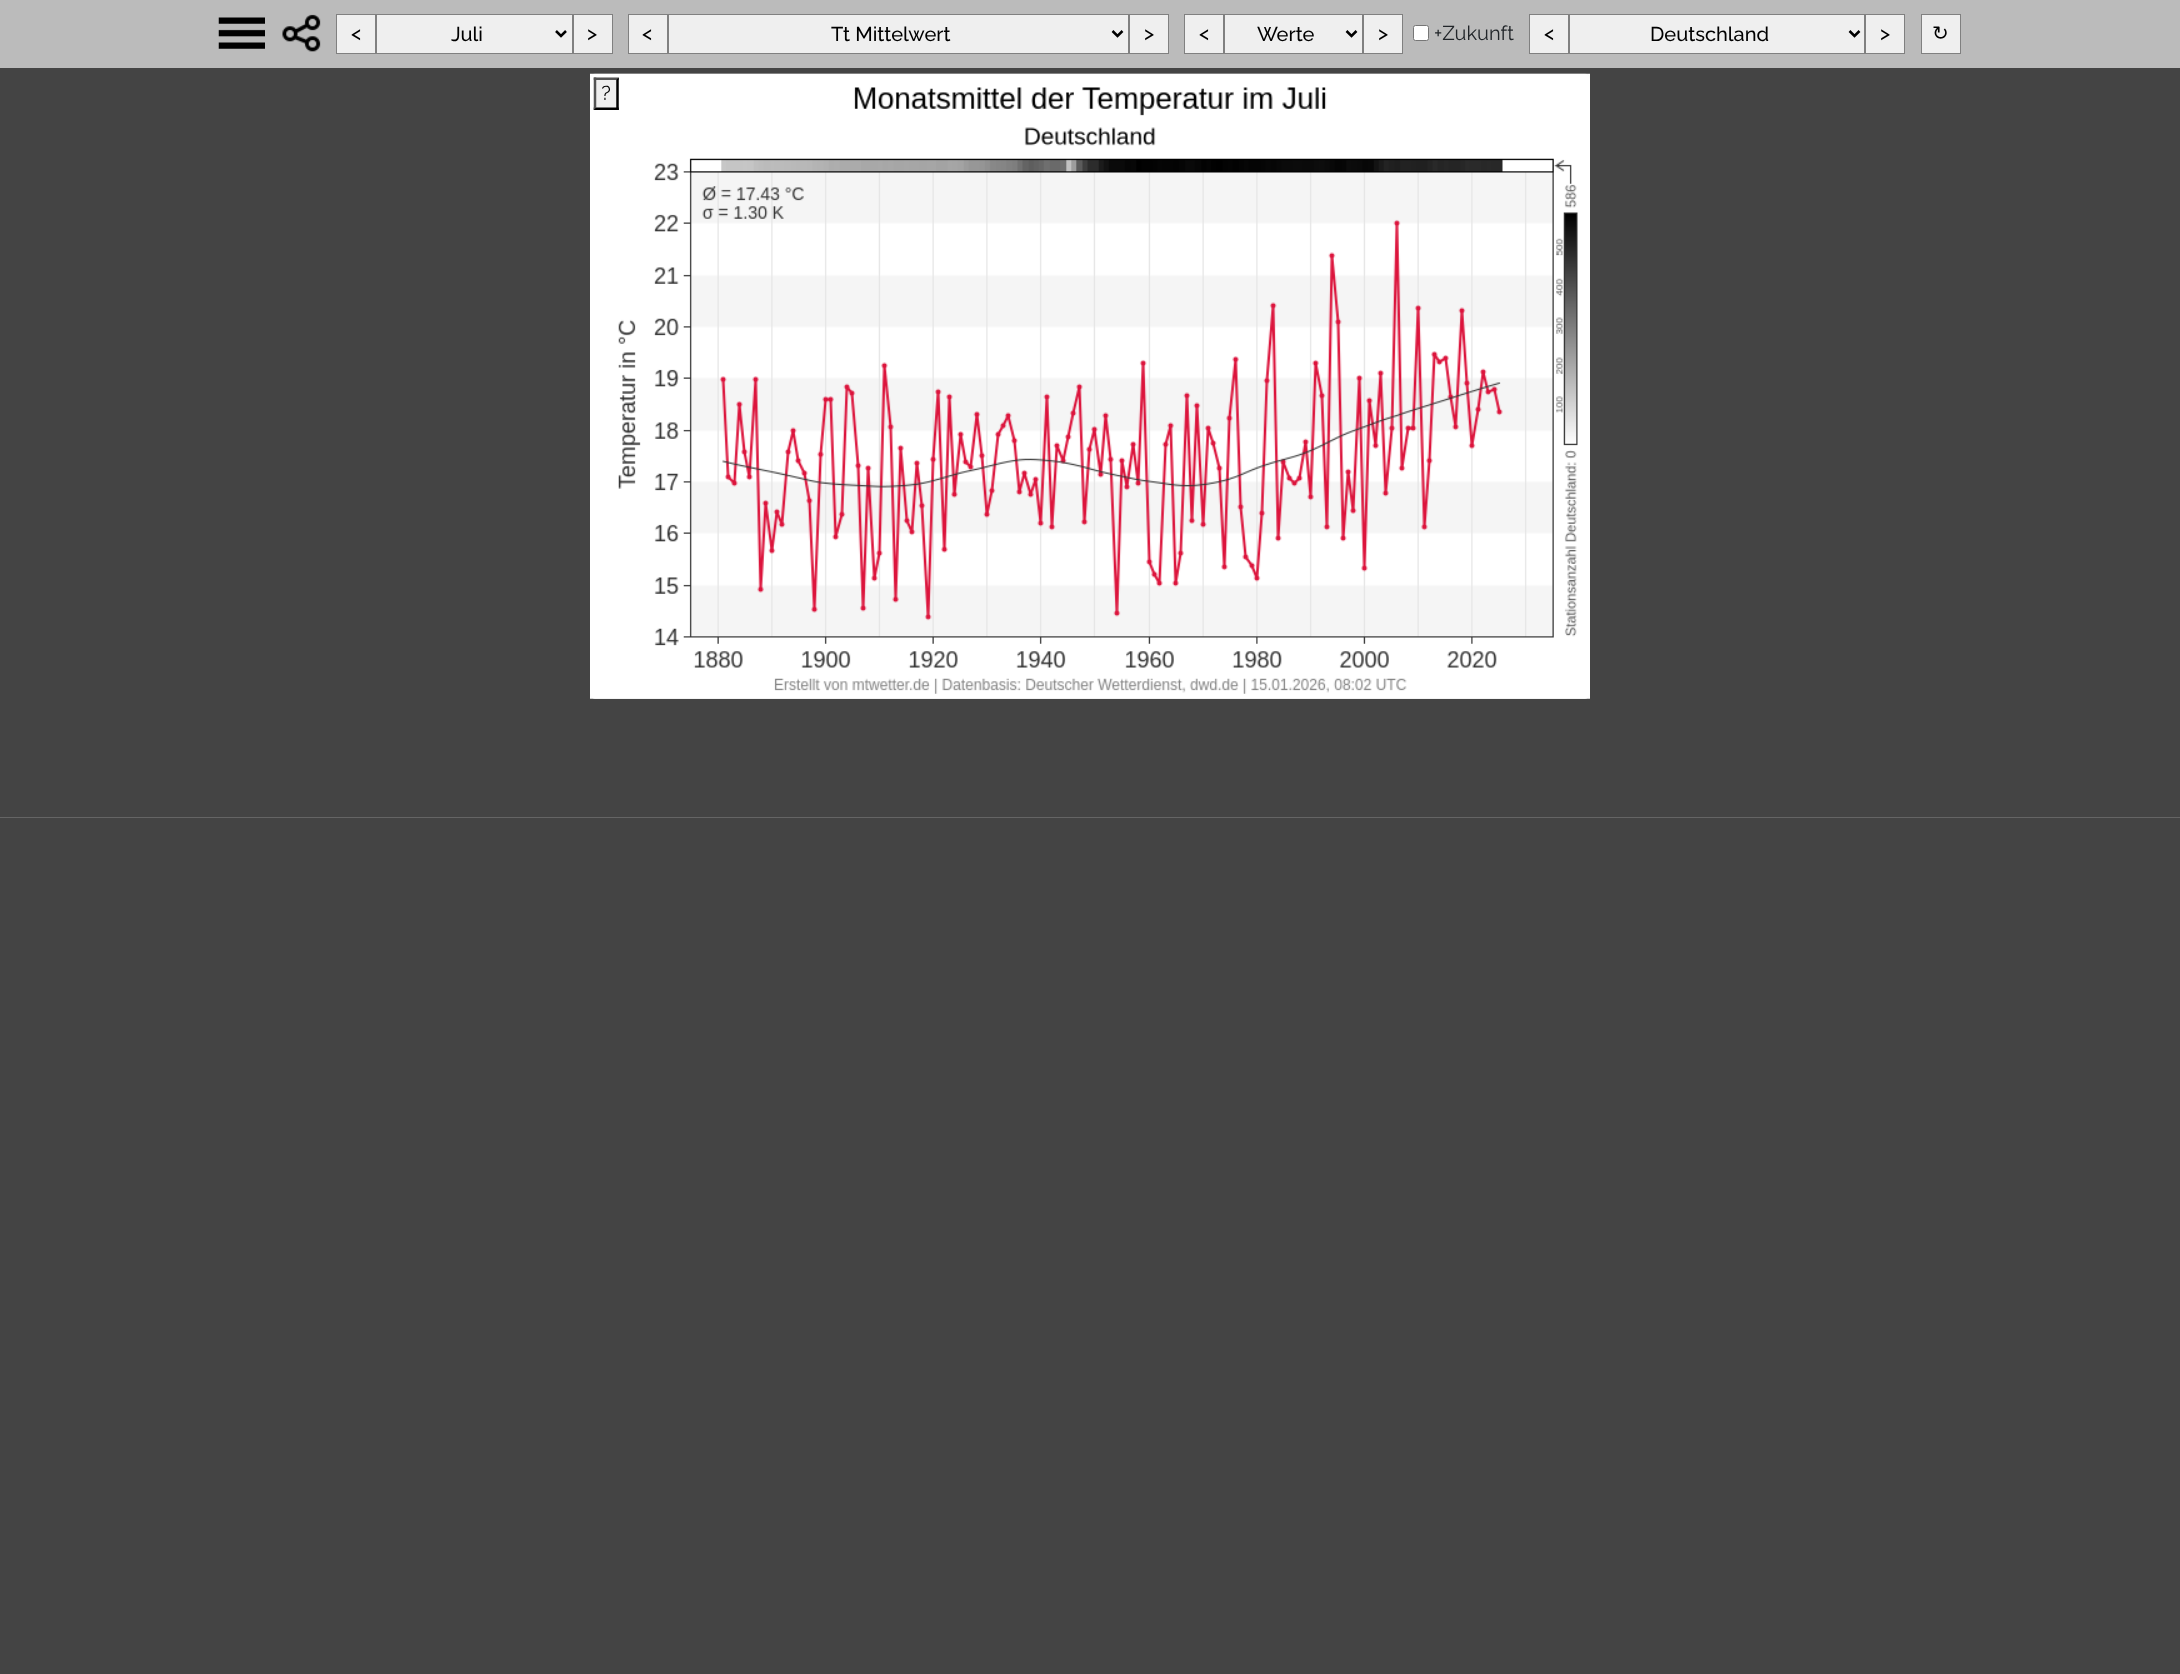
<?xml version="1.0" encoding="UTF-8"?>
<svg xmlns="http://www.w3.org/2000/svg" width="2180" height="1674">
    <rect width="100%" height="100%" fill="#444444"/>
    <rect x="0" y="0" width="2180" height="68" fill="#BBBBBB"/>
    <image x="218" y="17" width="47" height="32" href="img_01.png"/>
    <image x="282" y="14" width="39" height="38" href="img_02.png"/>
    <rect x="336.5" y="14.5" width="39" height="39" fill="#EFEFEF" stroke="#808080"/>
    <text x="351" y="40" font-family="Raleway" font-size="20" font-weight="500" fill="#000000">&lt;</text>
    <rect x="376.5" y="14.5" width="196" height="39" fill="#EFEFEF" stroke="#808080"/>
    <path d="M 556 31 L 561 36 L 566 31" fill="none" stroke="#000000" stroke-width="2.5"/>
    <text x="451" y="41" font-family="Raleway" font-size="20" font-weight="500" fill="#000000">Juli</text>
    <rect x="573.5" y="14.5" width="39" height="39" fill="#EFEFEF" stroke="#808080"/>
    <text x="587" y="40" font-family="Raleway" font-size="20" font-weight="500" fill="#000000">&gt;</text>
    <rect x="628.5" y="14.5" width="39" height="39" fill="#EFEFEF" stroke="#808080"/>
    <text x="642" y="40" font-family="Raleway" font-size="20" font-weight="500" fill="#000000">&lt;</text>
    <rect x="668.5" y="14.5" width="460" height="39" fill="#EFEFEF" stroke="#808080"/>
    <path d="M 1112.5 31 L 1117.5 36 L 1122.5 31" fill="none" stroke="#000000" stroke-width="2.5"/>
    <text x="831" y="41" font-family="Raleway" font-size="20" font-weight="500" fill="#000000">Tt Mittelwert</text>
    <rect x="1129.5" y="14.5" width="39" height="39" fill="#EFEFEF" stroke="#808080"/>
    <text x="1144" y="40" font-family="Raleway" font-size="20" font-weight="500" fill="#000000">&gt;</text>
    <rect x="1184.5" y="14.5" width="39" height="39" fill="#EFEFEF" stroke="#808080"/>
    <text x="1199" y="40" font-family="Raleway" font-size="20" font-weight="500" fill="#000000">&lt;</text>
    <rect x="1224.5" y="14.5" width="138" height="39" fill="#EFEFEF" stroke="#808080"/>
    <path d="M 1346.5 31 L 1351.5 36 L 1356.5 31" fill="none" stroke="#000000" stroke-width="2.5"/>
    <text x="1257" y="41" font-family="Raleway" font-size="20" font-weight="500" fill="#000000">Werte</text>
    <rect x="1363.5" y="14.5" width="39" height="39" fill="#EFEFEF" stroke="#808080"/>
    <text x="1378" y="40" font-family="Raleway" font-size="20" font-weight="500" fill="#000000">&gt;</text>
    <rect x="1413.5" y="25.5" width="15" height="15" rx="2" fill="#FFFFFF" stroke="#767676"/>
    <text x="1434" y="40" font-family="Raleway" font-size="20" fill="#212529">+Zukunft</text>
    <rect x="1529.5" y="14.5" width="39" height="39" fill="#EFEFEF" stroke="#808080"/>
    <text x="1544" y="40" font-family="Raleway" font-size="20" font-weight="500" fill="#000000">&lt;</text>
    <rect x="1569.5" y="14.5" width="295" height="39" fill="#EFEFEF" stroke="#808080"/>
    <path d="M 1849.5 31 L 1854.5 36 L 1859.5 31" fill="none" stroke="#000000" stroke-width="2.5"/>
    <text x="1650" y="41" font-family="Raleway" font-size="20" font-weight="500" fill="#000000">Deutschland</text>
    <rect x="1865.5" y="14.5" width="39" height="39" fill="#EFEFEF" stroke="#808080"/>
    <text x="1880" y="40" font-family="Raleway" font-size="20" font-weight="500" fill="#000000">&gt;</text>
    <rect x="1921.5" y="14.5" width="39" height="39" fill="#EFEFEF" stroke="#808080"/>
    <text x="1932" y="40" font-family="DejaVu Sans" font-size="20" fill="#000000">↻</text>
    <image x="0" y="68" width="2180" height="750" href="img_03.png"/>
</svg>
